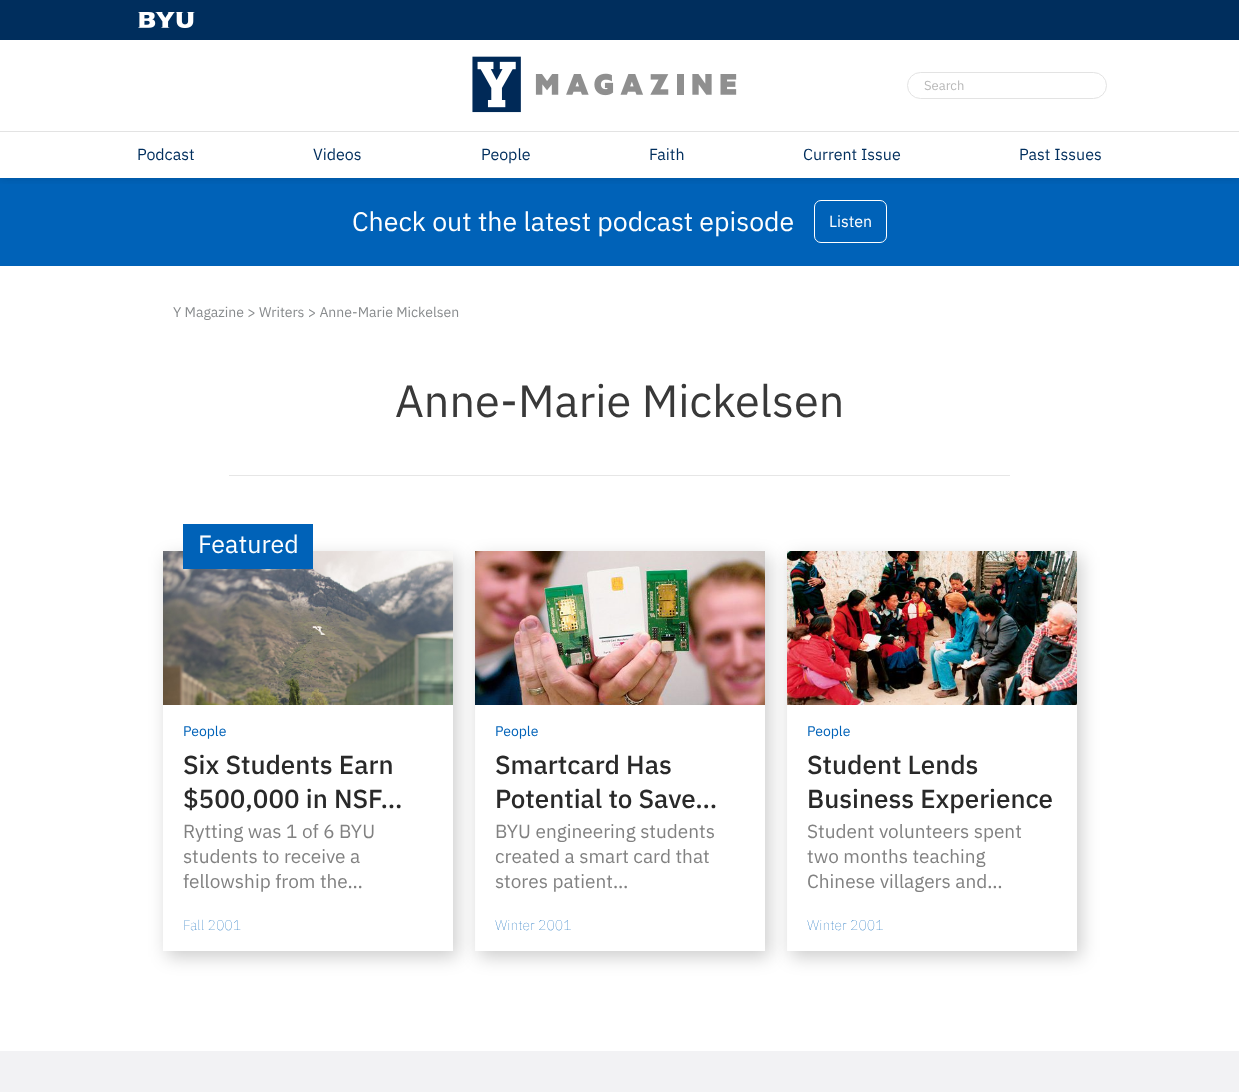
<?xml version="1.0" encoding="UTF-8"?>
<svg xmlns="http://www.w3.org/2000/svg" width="1239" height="1092">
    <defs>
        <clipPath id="clip1"><rect x="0" y="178" width="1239" height="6"/></clipPath>
        <filter id="blur1" x="-50%" y="-200%" width="200%" height="500%"><feGaussianBlur stdDeviation="5"/></filter>
        <clipPath id="clip2"><path d="M 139 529 H 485 V 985 H 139 Z M 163 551 H 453 V 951 H 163 Z" clip-rule="evenodd"/></clipPath>
        <filter id="blur2" x="-50%" y="-200%" width="200%" height="500%"><feGaussianBlur stdDeviation="9"/></filter>
        <clipPath id="clip3"><path d="M 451 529 H 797 V 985 H 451 Z M 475 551 H 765 V 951 H 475 Z" clip-rule="evenodd"/></clipPath>
        <clipPath id="clip4"><path d="M 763 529 H 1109 V 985 H 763 Z M 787 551 H 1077 V 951 H 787 Z" clip-rule="evenodd"/></clipPath>
    </defs>
    <rect width="100%" height="100%" fill="#FFFFFF"/>
    <rect x="0" y="178" width="1239" height="88" fill="#0062B8"/>
    <g clip-path="url(#clip1)">
        <rect x="0" y="0" width="1239" height="178" fill="#000000" fill-opacity="0.16" filter="url(#blur1)"/>
    </g>
    <rect x="0" y="0" width="1239" height="40" fill="#002E5D"/>
    <image x="138" y="12" width="57" height="16" href="img_01.png"/>
    <image x="472" y="56" width="265" height="57" href="img_02.png"/>
    <rect x="907.5" y="72.5" width="199" height="26" rx="13" fill="none" stroke="#E3E3E3"/>
    <text x="924" y="90" font-family="IBM Plex Sans" font-size="13" fill="#B8B8B8">Search</text>
    <rect x="0" y="131" width="1239" height="1" fill="#E3E3E3"/>
    <text x="137" y="160" font-family="IBM Plex Sans" font-size="16" fill="#002E5D">Podcast</text>
    <text x="313" y="160" font-family="IBM Plex Sans" font-size="16" fill="#002E5D">Videos</text>
    <text x="481" y="160" font-family="IBM Plex Sans" font-size="16" fill="#002E5D">People</text>
    <text x="649" y="160" font-family="IBM Plex Sans" font-size="16" fill="#002E5D">Faith</text>
    <text x="803" y="160" font-family="IBM Plex Sans" font-size="16" fill="#002E5D">Current Issue</text>
    <text x="1019" y="160" font-family="IBM Plex Sans" font-size="16" fill="#002E5D">Past Issues</text>
    <text x="352" y="231" font-family="IBM Plex Sans" font-size="26.7" fill="#FFFFFF">Check out the latest podcast episode</text>
    <rect x="814.5" y="200.5" width="72" height="42" rx="6.5" fill="none" stroke="#FFFFFF"/>
    <text x="829" y="227" font-family="IBM Plex Sans" font-size="16" fill="#FFFFFF">Listen</text>
    <text x="173" y="317" font-family="IBM Plex Sans" font-size="14" fill="#888B8D">Y Magazine &gt; Writers &gt; Anne-Marie Mickelsen</text>
    <rect x="229" y="475" width="781" height="1" fill="#E6E6E6"/>
    <text x="395" y="417" font-family="IBM Plex Sans" font-size="45" fill="#393939">Anne-Marie Mickelsen</text>
    <g clip-path="url(#clip2)">
        <rect x="167" y="557" width="290" height="400" fill="#000000" fill-opacity="0.2" filter="url(#blur2)"/>
    </g>
    <image x="163" y="551" width="290" height="154" href="img_03.png"/>
    <rect x="183" y="524" width="130" height="45" fill="#0062B8"/>
    <text x="198" y="553" font-family="IBM Plex Sans" font-size="25" fill="#FFFFFF">Featured</text>
    <text x="183" y="736" font-family="IBM Plex Sans" font-size="14" fill="#0062B8">People</text>
    <text font-family="IBM Plex Sans" font-size="26" font-weight="500" fill="#292929">
        <tspan x="183" y="774">Six Students Earn</tspan>
        <tspan x="183" y="808">$500,000 in NSF…</tspan>
    </text>
    <text font-family="IBM Plex Sans" font-size="19" fill="#818181">
        <tspan x="183" y="838">Rytting was 1 of 6 BYU</tspan>
        <tspan x="183" y="863">students to receive a</tspan>
        <tspan x="183" y="888">fellowship from the…</tspan>
    </text>
    <text x="183" y="930" font-family="IBM Plex Sans" font-size="14" font-weight="100" fill="#0062B8">Fall 2001</text>
    <g clip-path="url(#clip3)">
        <rect x="479" y="557" width="290" height="400" fill="#000000" fill-opacity="0.2" filter="url(#blur2)"/>
    </g>
    <image x="475" y="551" width="290" height="154" href="img_04.png"/>
    <text x="495" y="736" font-family="IBM Plex Sans" font-size="14" fill="#0062B8">People</text>
    <text font-family="IBM Plex Sans" font-size="26" font-weight="500" fill="#292929">
        <tspan x="495" y="774">Smartcard Has</tspan>
        <tspan x="495" y="808">Potential to Save…</tspan>
    </text>
    <text font-family="IBM Plex Sans" font-size="19" fill="#818181">
        <tspan x="495" y="838">BYU engineering students</tspan>
        <tspan x="495" y="863">created a smart card that</tspan>
        <tspan x="495" y="888">stores patient…</tspan>
    </text>
    <text x="495" y="930" font-family="IBM Plex Sans" font-size="14" font-weight="100" fill="#0062B8">Winter 2001</text>
    <g clip-path="url(#clip4)">
        <rect x="791" y="557" width="290" height="400" fill="#000000" fill-opacity="0.2" filter="url(#blur2)"/>
    </g>
    <image x="787" y="551" width="290" height="154" href="img_05.png"/>
    <text x="807" y="736" font-family="IBM Plex Sans" font-size="14" fill="#0062B8">People</text>
    <text font-family="IBM Plex Sans" font-size="26" font-weight="500" fill="#292929">
        <tspan x="807" y="774">Student Lends</tspan>
        <tspan x="807" y="808">Business Experience</tspan>
    </text>
    <text font-family="IBM Plex Sans" font-size="19" fill="#818181">
        <tspan x="807" y="838">Student volunteers spent</tspan>
        <tspan x="807" y="863">two months teaching</tspan>
        <tspan x="807" y="888">Chinese villagers and…</tspan>
    </text>
    <text x="807" y="930" font-family="IBM Plex Sans" font-size="14" font-weight="100" fill="#0062B8">Winter 2001</text>
    <rect x="0" y="1051" width="1239" height="41" fill="#F2F2F4"/>
</svg>
